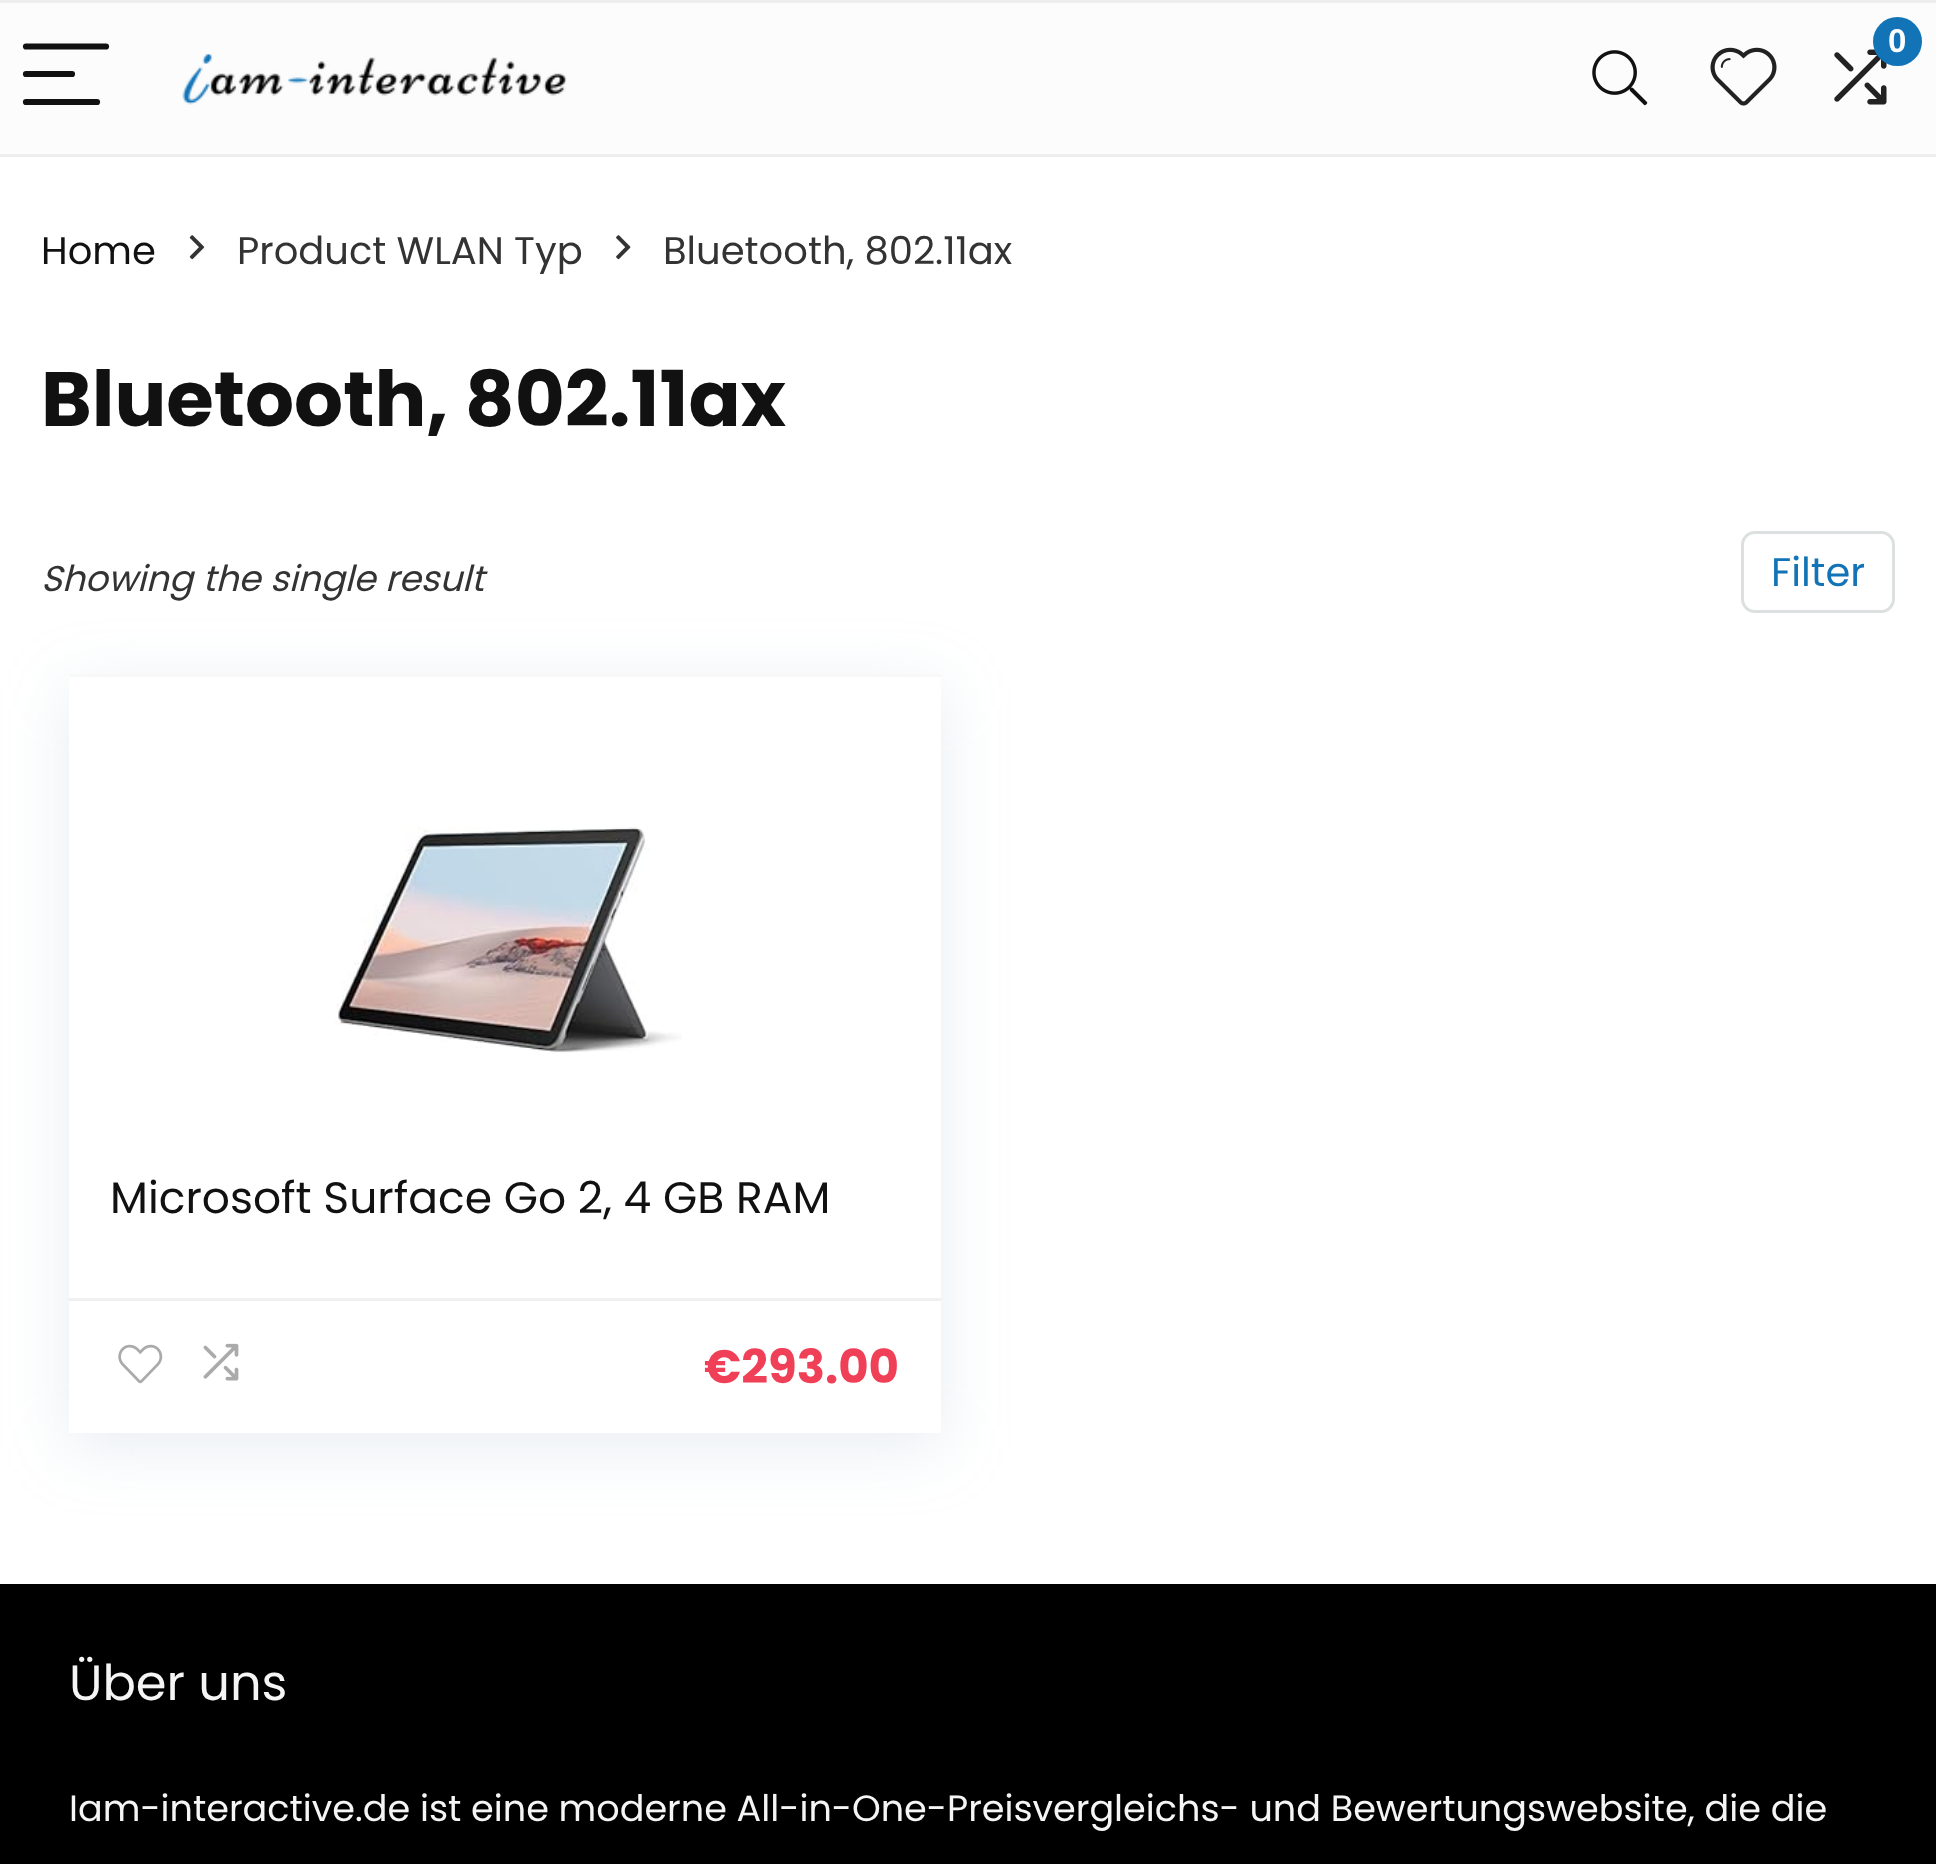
<?xml version="1.0" encoding="UTF-8"?>
<svg xmlns="http://www.w3.org/2000/svg" width="1936" height="1864">
    <defs>
        <filter id="blur1" x="-50%" y="-200%" width="200%" height="500%"><feGaussianBlur stdDeviation="31.5"/></filter>
    </defs>
    <rect width="100%" height="100%" fill="#FFFFFF"/>
    <rect x="0" y="3" width="1936" height="151" fill="#FCFCFC"/>
    <rect x="0" y="0" width="1936" height="3" fill="#EEEEEE"/>
    <rect x="0" y="154" width="1936" height="3" fill="#EEEEEE"/>
    <image x="1834" y="49" width="53" height="56" href="img_01.png"/>
    <circle cx="1897.5" cy="41.5" r="24.5" fill="#1274B7"/>
    <text x="1888" y="52" font-family="Liberation Sans" font-size="33" font-weight="700" fill="#FFFFFF">0</text>
    <image x="1592" y="50" width="56" height="56" href="img_02.png"/>
    <image x="1710" y="47" width="67" height="59" href="img_03.png"/>
    <path d="M 26 46.5 H 106" fill="none" stroke="#111111" stroke-width="6.2" stroke-linecap="round"/>
    <path d="M 26 74 H 72" fill="none" stroke="#111111" stroke-width="6.2" stroke-linecap="round"/>
    <path d="M 26 102 H 97" fill="none" stroke="#111111" stroke-width="6.2" stroke-linecap="round"/>
    <image x="182" y="53" width="385" height="52" href="img_04.png"/>
    <text x="41" y="264" font-family="Poppins" font-size="38.5" fill="#111111">Home</text>
    <image x="189" y="235" width="16" height="25" href="img_05.png"/>
    <text x="237" y="264" font-family="Poppins" font-size="38.5" fill="#333333">Product WLAN Typ</text>
    <image x="616" y="235" width="15" height="25" href="img_06.png"/>
    <text x="663" y="264" font-family="Poppins" font-size="38.5" fill="#333333">Bluetooth, 802.11ax</text>
    <text x="41" y="426" font-family="Poppins" font-size="77" font-weight="700" fill="#111111">Bluetooth, 802.11ax</text>
    <text x="41" y="591" font-family="Poppins" font-size="35.75" font-style="italic" fill="#333333">Showing the single result</text>
    <rect x="1742.5" y="532.5" width="151" height="79" rx="12.5" fill="none" stroke="#DCE0E0" stroke-width="3"/>
    <text x="1771" y="586" font-family="Poppins" font-size="40" fill="#1274B7">Filter</text>
    <rect x="69" y="688" width="872" height="759" fill="#BCCFDB" fill-opacity="0.35" filter="url(#blur1)"/>
    <rect x="69" y="677" width="872" height="756" fill="#FFFFFF"/>
    <rect x="69" y="674" width="872" height="3" fill="#F8F8F8"/>
    <image x="335" y="827" width="347" height="226" href="img_07.png"/>
    <text x="110" y="1213" font-family="Poppins" font-size="44" fill="#111111">Microsoft Surface Go 2, 4 GB RAM</text>
    <rect x="69" y="1298" width="872" height="3" fill="#F0F0F0"/>
    <image x="118" y="1344" width="45" height="40" href="img_08.png"/>
    <image x="203" y="1343" width="36" height="38" href="img_09.png"/>
    <text x="704" y="1383" font-family="Poppins" font-size="46.75" font-weight="700" fill="#F04057">€293.00</text>
    <rect x="0" y="1584" width="1936" height="280" fill="#000000"/>
    <text x="69" y="1700" font-family="Poppins" font-size="49.5" fill="#F5F5F5">Über uns</text>
    <text x="69" y="1821" font-family="Poppins" font-size="36.6" fill="#F5F5F5">Iam-interactive.de ist eine moderne All-in-One-Preisvergleichs- und Bewertungswebsite, die die</text>
</svg>
